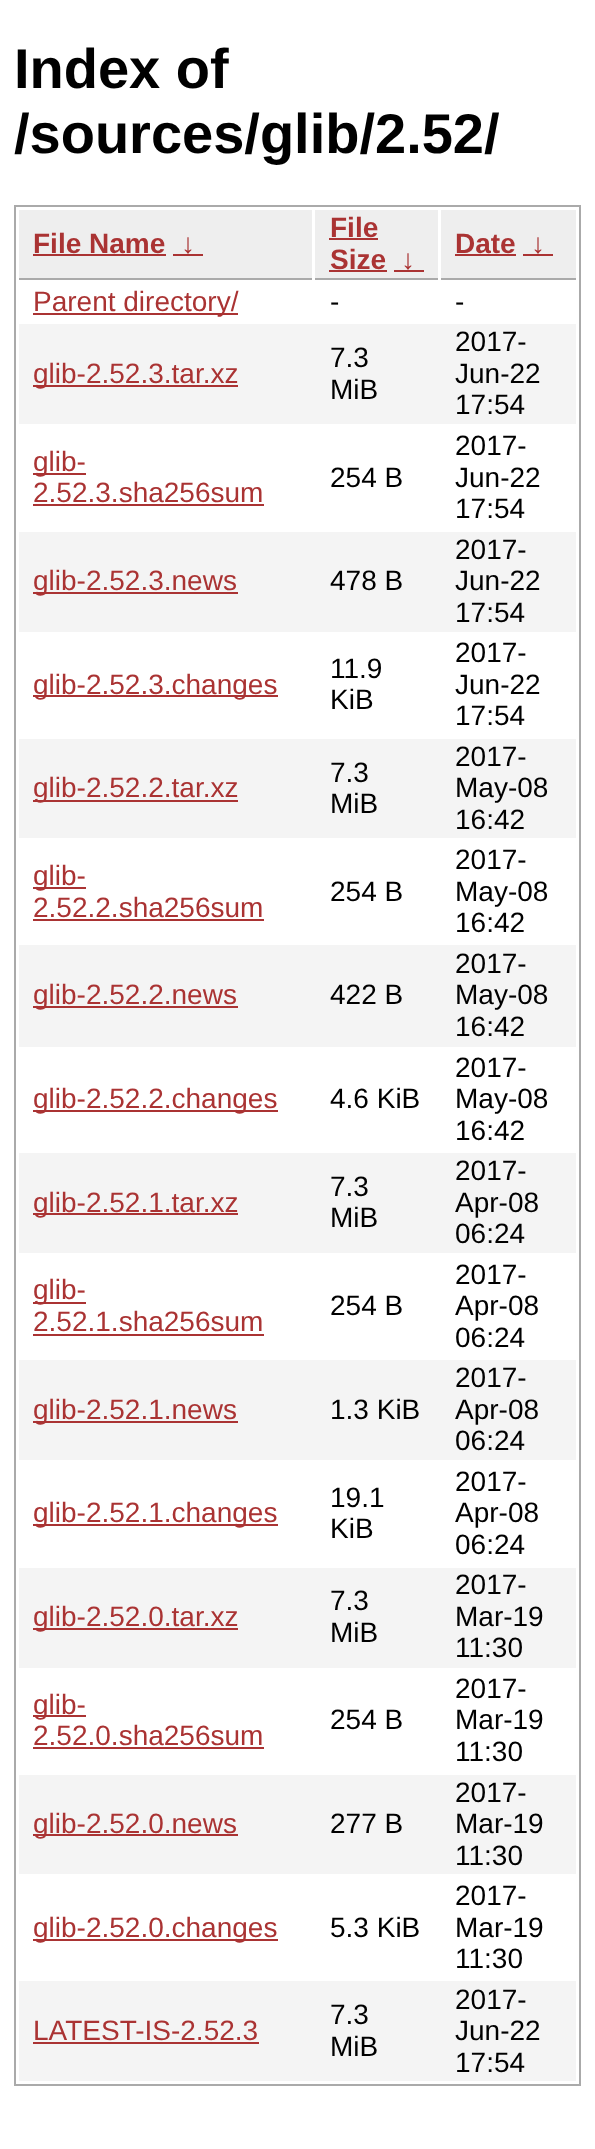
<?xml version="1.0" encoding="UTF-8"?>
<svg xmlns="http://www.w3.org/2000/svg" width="595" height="2149">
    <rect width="100%" height="100%" fill="#FFFFFF"/>
    <text font-family="Liberation Sans" font-size="56" font-weight="700" fill="#000000">
        <tspan x="14" y="88">Index of</tspan>
        <tspan x="14" y="153">/sources/glib/2.52/</tspan>
    </text>
    <rect x="15" y="206" width="565" height="1879" fill="none" stroke="#AAAAAA" stroke-width="2"/>
    <rect x="19" y="210" width="293" height="68" fill="#EEEEEE"/>
    <rect x="19" y="278" width="293" height="2" fill="#AAAAAA"/>
    <text x="33" y="253" font-family="Liberation Sans" font-size="28" font-weight="700" fill="#AA3333">File Name</text>
    <rect x="33" y="254" width="133" height="2" fill="#AA3333"/>
    <text x="181" y="253" font-family="Liberation Sans" font-size="28" font-weight="700" fill="#AA3333">↓</text>
    <rect x="173" y="254" width="30" height="2" fill="#AA3333"/>
    <rect x="315" y="210" width="123" height="68" fill="#EEEEEE"/>
    <rect x="315" y="278" width="123" height="2" fill="#AAAAAA"/>
    <text x="330" y="237" font-family="Liberation Sans" font-size="28" font-weight="700" fill="#AA3333">File</text>
    <rect x="329" y="238" width="49" height="2" fill="#AA3333"/>
    <text x="330" y="269" font-family="Liberation Sans" font-size="28" font-weight="700" fill="#AA3333">Size</text>
    <rect x="329" y="270" width="58" height="2" fill="#AA3333"/>
    <text x="401" y="269" font-family="Liberation Sans" font-size="28" font-weight="700" fill="#AA3333">↓</text>
    <rect x="394" y="270" width="30" height="2" fill="#AA3333"/>
    <rect x="441" y="210" width="135" height="68" fill="#EEEEEE"/>
    <rect x="441" y="278" width="135" height="2" fill="#AAAAAA"/>
    <text x="455" y="253" font-family="Liberation Sans" font-size="28" font-weight="700" fill="#AA3333">Date</text>
    <rect x="455" y="254" width="61" height="2" fill="#AA3333"/>
    <text x="531" y="253" font-family="Liberation Sans" font-size="28" font-weight="700" fill="#AA3333">↓</text>
    <rect x="523" y="254" width="30" height="2" fill="#AA3333"/>
    <rect x="33" y="313" width="205" height="2" fill="#AA3333"/>
    <text x="33" y="311" font-family="Liberation Sans" font-size="28" fill="#AA3333">Parent directory/</text>
    <text x="330" y="311" font-family="Liberation Sans" font-size="28" fill="#000000">-</text>
    <text x="455" y="311" font-family="Liberation Sans" font-size="28" fill="#000000">-</text>
    <rect x="19" y="324" width="557" height="100" fill="#F4F4F4"/>
    <rect x="33" y="385" width="205" height="2" fill="#AA3333"/>
    <text x="33" y="383" font-family="Liberation Sans" font-size="28" fill="#AA3333">glib-2.52.3.tar.xz</text>
    <text font-family="Liberation Sans" font-size="28" fill="#000000">
        <tspan x="330" y="367">7.3</tspan>
        <tspan x="330" y="399">MiB</tspan>
    </text>
    <text font-family="Liberation Sans" font-size="28" fill="#000000">
        <tspan x="455" y="351">2017-</tspan>
        <tspan x="455" y="383">Jun-22</tspan>
        <tspan x="455" y="414">17:54</tspan>
    </text>
    <rect x="33" y="473" width="53" height="2" fill="#AA3333"/>
    <text font-family="Liberation Sans" font-size="28" fill="#AA3333">
        <tspan x="33" y="471">glib-</tspan>
        <tspan x="33" y="502">2.52.3.sha256sum</tspan>
    </text>
    <rect x="33" y="504" width="231" height="2" fill="#AA3333"/>
    <text x="330" y="487" font-family="Liberation Sans" font-size="28" fill="#000000">254 B</text>
    <text font-family="Liberation Sans" font-size="28" fill="#000000">
        <tspan x="455" y="455">2017-</tspan>
        <tspan x="455" y="487">Jun-22</tspan>
        <tspan x="455" y="518">17:54</tspan>
    </text>
    <rect x="19" y="532" width="557" height="100" fill="#F4F4F4"/>
    <rect x="33" y="592" width="205" height="2" fill="#AA3333"/>
    <text x="33" y="590" font-family="Liberation Sans" font-size="28" fill="#AA3333">glib-2.52.3.news</text>
    <text x="330" y="590" font-family="Liberation Sans" font-size="28" fill="#000000">478 B</text>
    <text font-family="Liberation Sans" font-size="28" fill="#000000">
        <tspan x="455" y="559">2017-</tspan>
        <tspan x="455" y="590">Jun-22</tspan>
        <tspan x="455" y="622">17:54</tspan>
    </text>
    <rect x="33" y="695" width="245" height="2" fill="#AA3333"/>
    <text x="33" y="694" font-family="Liberation Sans" font-size="28" fill="#AA3333">glib-2.52.3.changes</text>
    <text font-family="Liberation Sans" font-size="28" fill="#000000">
        <tspan x="330" y="678">11.9</tspan>
        <tspan x="330" y="709">KiB</tspan>
    </text>
    <text font-family="Liberation Sans" font-size="28" fill="#000000">
        <tspan x="455" y="662">2017-</tspan>
        <tspan x="455" y="694">Jun-22</tspan>
        <tspan x="455" y="725">17:54</tspan>
    </text>
    <rect x="19" y="739" width="557" height="99" fill="#F4F4F4"/>
    <rect x="33" y="800" width="205" height="2" fill="#AA3333"/>
    <text x="33" y="797" font-family="Liberation Sans" font-size="28" fill="#AA3333">glib-2.52.2.tar.xz</text>
    <text font-family="Liberation Sans" font-size="28" fill="#000000">
        <tspan x="330" y="782">7.3</tspan>
        <tspan x="330" y="813">MiB</tspan>
    </text>
    <text font-family="Liberation Sans" font-size="28" fill="#000000">
        <tspan x="455" y="766">2017-</tspan>
        <tspan x="455" y="797">May-08</tspan>
        <tspan x="455" y="829">16:42</tspan>
    </text>
    <rect x="33" y="887" width="53" height="2" fill="#AA3333"/>
    <text font-family="Liberation Sans" font-size="28" fill="#AA3333">
        <tspan x="33" y="885">glib-</tspan>
        <tspan x="33" y="917">2.52.2.sha256sum</tspan>
    </text>
    <rect x="33" y="919" width="231" height="2" fill="#AA3333"/>
    <text x="330" y="901" font-family="Liberation Sans" font-size="28" fill="#000000">254 B</text>
    <text font-family="Liberation Sans" font-size="28" fill="#000000">
        <tspan x="455" y="869">2017-</tspan>
        <tspan x="455" y="901">May-08</tspan>
        <tspan x="455" y="932">16:42</tspan>
    </text>
    <rect x="19" y="945" width="557" height="102" fill="#F4F4F4"/>
    <rect x="33" y="1006" width="205" height="2" fill="#AA3333"/>
    <text x="33" y="1004" font-family="Liberation Sans" font-size="28" fill="#AA3333">glib-2.52.2.news</text>
    <text x="330" y="1004" font-family="Liberation Sans" font-size="28" fill="#000000">422 B</text>
    <text font-family="Liberation Sans" font-size="28" fill="#000000">
        <tspan x="455" y="973">2017-</tspan>
        <tspan x="455" y="1004">May-08</tspan>
        <tspan x="455" y="1036">16:42</tspan>
    </text>
    <rect x="33" y="1110" width="245" height="2" fill="#AA3333"/>
    <text x="33" y="1108" font-family="Liberation Sans" font-size="28" fill="#AA3333">glib-2.52.2.changes</text>
    <text x="330" y="1108" font-family="Liberation Sans" font-size="28" fill="#000000">4.6 KiB</text>
    <text font-family="Liberation Sans" font-size="28" fill="#000000">
        <tspan x="455" y="1077">2017-</tspan>
        <tspan x="455" y="1108">May-08</tspan>
        <tspan x="455" y="1140">16:42</tspan>
    </text>
    <rect x="19" y="1153" width="557" height="100" fill="#F4F4F4"/>
    <rect x="33" y="1213" width="205" height="2" fill="#AA3333"/>
    <text x="33" y="1212" font-family="Liberation Sans" font-size="28" fill="#AA3333">glib-2.52.1.tar.xz</text>
    <text font-family="Liberation Sans" font-size="28" fill="#000000">
        <tspan x="330" y="1196">7.3</tspan>
        <tspan x="330" y="1227">MiB</tspan>
    </text>
    <text font-family="Liberation Sans" font-size="28" fill="#000000">
        <tspan x="455" y="1180">2017-</tspan>
        <tspan x="455" y="1212">Apr-08</tspan>
        <tspan x="455" y="1243">06:24</tspan>
    </text>
    <rect x="33" y="1302" width="53" height="2" fill="#AA3333"/>
    <text font-family="Liberation Sans" font-size="28" fill="#AA3333">
        <tspan x="33" y="1299">glib-</tspan>
        <tspan x="33" y="1331">2.52.1.sha256sum</tspan>
    </text>
    <rect x="33" y="1334" width="231" height="2" fill="#AA3333"/>
    <text x="330" y="1315" font-family="Liberation Sans" font-size="28" fill="#000000">254 B</text>
    <text font-family="Liberation Sans" font-size="28" fill="#000000">
        <tspan x="455" y="1284">2017-</tspan>
        <tspan x="455" y="1315">Apr-08</tspan>
        <tspan x="455" y="1347">06:24</tspan>
    </text>
    <rect x="19" y="1360" width="557" height="100" fill="#F4F4F4"/>
    <rect x="33" y="1421" width="205" height="2" fill="#AA3333"/>
    <text x="33" y="1419" font-family="Liberation Sans" font-size="28" fill="#AA3333">glib-2.52.1.news</text>
    <text x="330" y="1419" font-family="Liberation Sans" font-size="28" fill="#000000">1.3 KiB</text>
    <text font-family="Liberation Sans" font-size="28" fill="#000000">
        <tspan x="455" y="1387">2017-</tspan>
        <tspan x="455" y="1419">Apr-08</tspan>
        <tspan x="455" y="1450">06:24</tspan>
    </text>
    <rect x="33" y="1524" width="245" height="2" fill="#AA3333"/>
    <text x="33" y="1522" font-family="Liberation Sans" font-size="28" fill="#AA3333">glib-2.52.1.changes</text>
    <text font-family="Liberation Sans" font-size="28" fill="#000000">
        <tspan x="330" y="1507">19.1</tspan>
        <tspan x="330" y="1538">KiB</tspan>
    </text>
    <text font-family="Liberation Sans" font-size="28" fill="#000000">
        <tspan x="455" y="1491">2017-</tspan>
        <tspan x="455" y="1522">Apr-08</tspan>
        <tspan x="455" y="1554">06:24</tspan>
    </text>
    <rect x="19" y="1568" width="557" height="100" fill="#F4F4F4"/>
    <rect x="33" y="1628" width="205" height="2" fill="#AA3333"/>
    <text x="33" y="1626" font-family="Liberation Sans" font-size="28" fill="#AA3333">glib-2.52.0.tar.xz</text>
    <text font-family="Liberation Sans" font-size="28" fill="#000000">
        <tspan x="330" y="1610">7.3</tspan>
        <tspan x="330" y="1642">MiB</tspan>
    </text>
    <text font-family="Liberation Sans" font-size="28" fill="#000000">
        <tspan x="455" y="1594">2017-</tspan>
        <tspan x="455" y="1626">Mar-19</tspan>
        <tspan x="455" y="1657">11:30</tspan>
    </text>
    <rect x="33" y="1715" width="53" height="2" fill="#AA3333"/>
    <text font-family="Liberation Sans" font-size="28" fill="#AA3333">
        <tspan x="33" y="1714">glib-</tspan>
        <tspan x="33" y="1745">2.52.0.sha256sum</tspan>
    </text>
    <rect x="33" y="1747" width="231" height="2" fill="#AA3333"/>
    <text x="330" y="1729" font-family="Liberation Sans" font-size="28" fill="#000000">254 B</text>
    <text font-family="Liberation Sans" font-size="28" fill="#000000">
        <tspan x="455" y="1698">2017-</tspan>
        <tspan x="455" y="1729">Mar-19</tspan>
        <tspan x="455" y="1761">11:30</tspan>
    </text>
    <rect x="19" y="1775" width="557" height="99" fill="#F4F4F4"/>
    <rect x="33" y="1834" width="205" height="2" fill="#AA3333"/>
    <text x="33" y="1833" font-family="Liberation Sans" font-size="28" fill="#AA3333">glib-2.52.0.news</text>
    <text x="330" y="1833" font-family="Liberation Sans" font-size="28" fill="#000000">277 B</text>
    <text font-family="Liberation Sans" font-size="28" fill="#000000">
        <tspan x="455" y="1802">2017-</tspan>
        <tspan x="455" y="1833">Mar-19</tspan>
        <tspan x="455" y="1865">11:30</tspan>
    </text>
    <rect x="33" y="1939" width="245" height="2" fill="#AA3333"/>
    <text x="33" y="1937" font-family="Liberation Sans" font-size="28" fill="#AA3333">glib-2.52.0.changes</text>
    <text x="330" y="1937" font-family="Liberation Sans" font-size="28" fill="#000000">5.3 KiB</text>
    <text font-family="Liberation Sans" font-size="28" fill="#000000">
        <tspan x="455" y="1905">2017-</tspan>
        <tspan x="455" y="1937">Mar-19</tspan>
        <tspan x="455" y="1968">11:30</tspan>
    </text>
    <rect x="19" y="1981" width="557" height="100" fill="#F4F4F4"/>
    <text x="33" y="2040" font-family="Liberation Sans" font-size="28" fill="#AA3333">LATEST-IS-2.52.3</text>
    <rect x="33" y="2042" width="226" height="2" fill="#AA3333"/>
    <text font-family="Liberation Sans" font-size="28" fill="#000000">
        <tspan x="330" y="2024">7.3</tspan>
        <tspan x="330" y="2056">MiB</tspan>
    </text>
    <text font-family="Liberation Sans" font-size="28" fill="#000000">
        <tspan x="455" y="2009">2017-</tspan>
        <tspan x="455" y="2040">Jun-22</tspan>
        <tspan x="455" y="2072">17:54</tspan>
    </text>
</svg>
